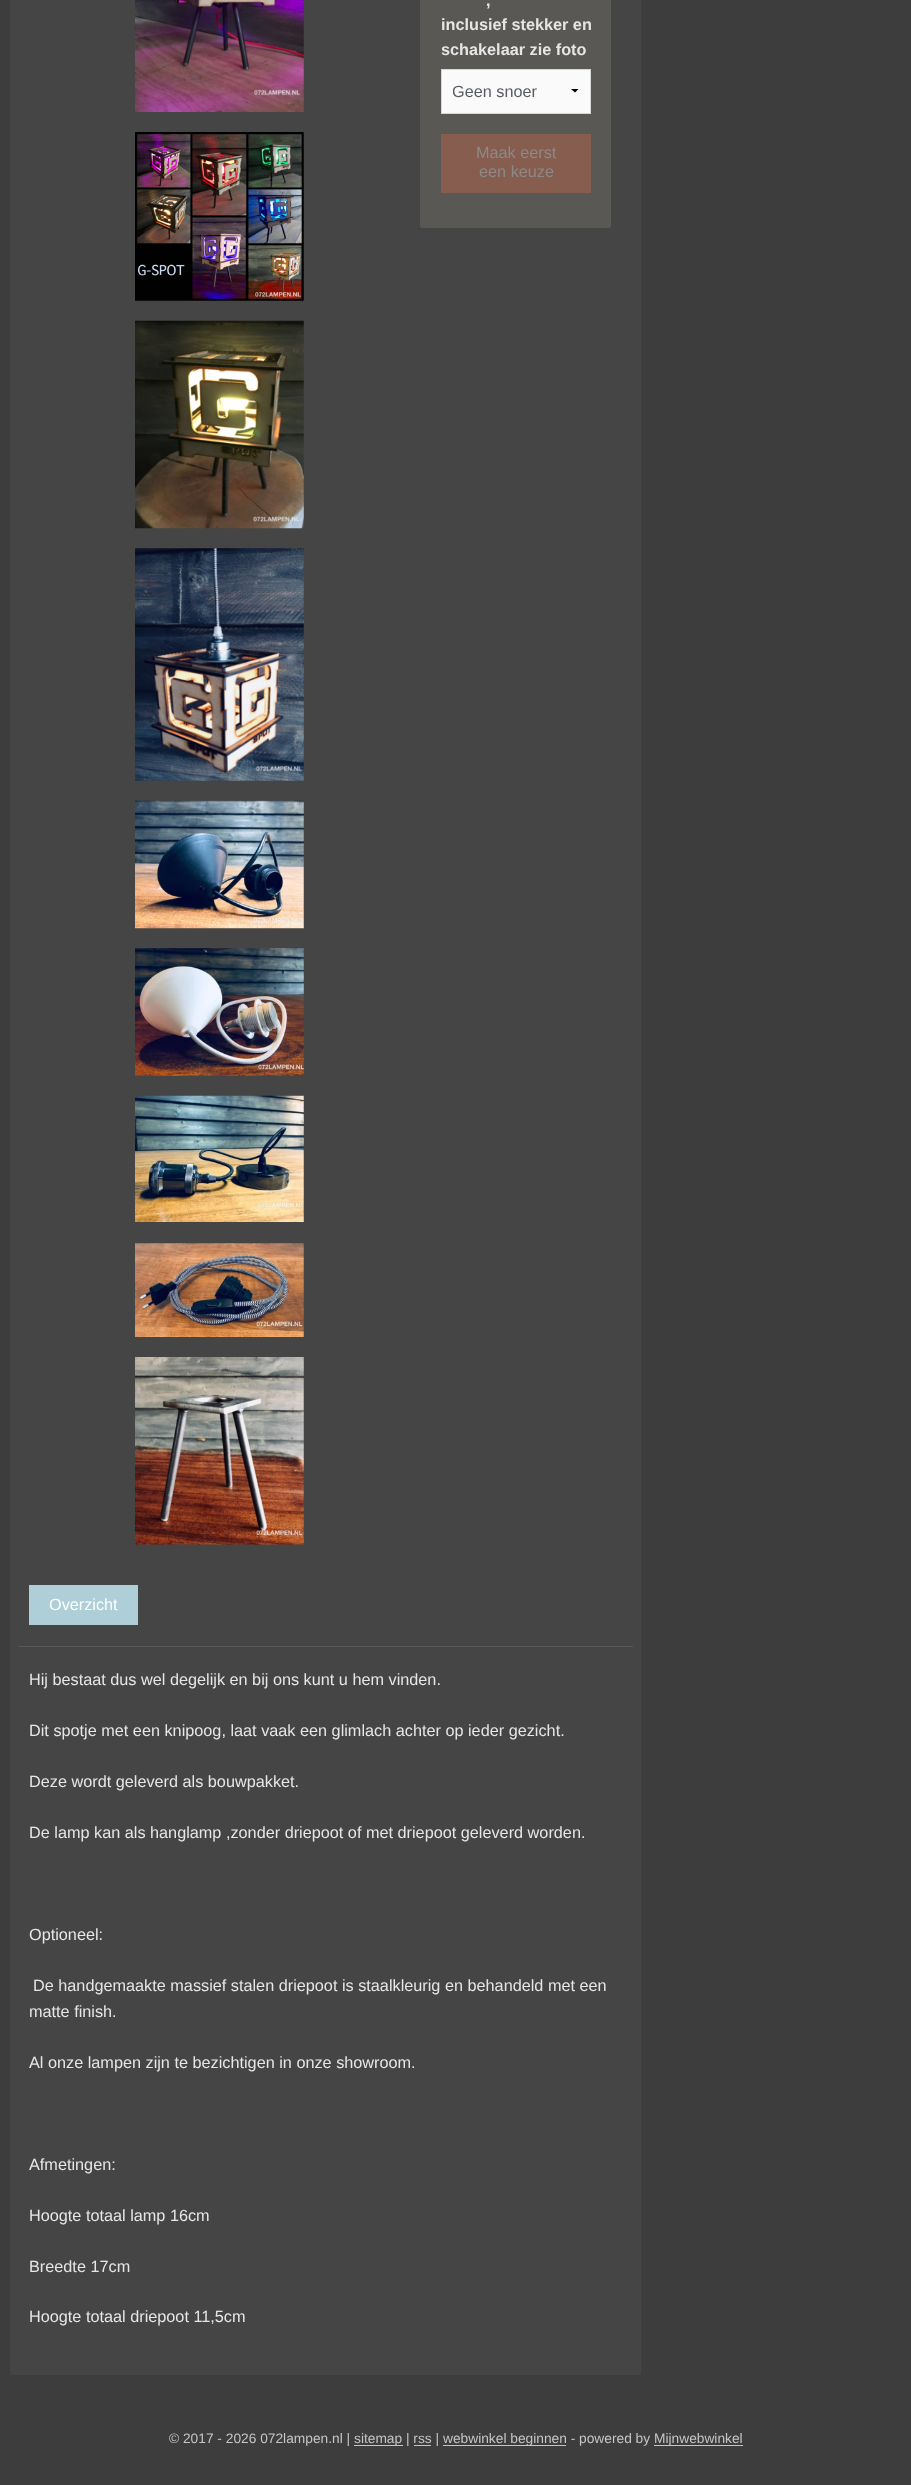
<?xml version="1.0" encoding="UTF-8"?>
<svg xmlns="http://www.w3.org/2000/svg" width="911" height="2485">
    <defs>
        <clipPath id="clip1"><rect x="453" y="70" width="127" height="45"/></clipPath>
    </defs>
    <rect width="100%" height="100%" fill="#3D3D3D"/>
    <rect x="10" y="-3" width="631" height="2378" rx="2.5" fill="#454545"/>
    <image x="135" y="0" width="169" height="112" href="img_01.png"/>
    <image x="135" y="132" width="169" height="169" href="img_02.png"/>
    <image x="135" y="320" width="169" height="209" href="img_03.png"/>
    <image x="135" y="548" width="169" height="233" href="img_04.png"/>
    <image x="135" y="800" width="169" height="129" href="img_05.png"/>
    <image x="135" y="948" width="169" height="128" href="img_06.png"/>
    <image x="135" y="1095" width="169" height="127" href="img_07.png"/>
    <image x="135" y="1243" width="169" height="94" href="img_08.png"/>
    <image x="135" y="1357" width="169" height="188" href="img_09.png"/>
    <rect x="420" y="-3" width="191" height="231" rx="2.5" fill="#595854"/>
    <text x="486" y="6" font-family="Liberation Sans" font-size="16.25" font-weight="700" fill="#E6E6E6">,</text>
    <text font-family="Liberation Sans" font-size="16.25" font-weight="700" fill="#E6E6E6">
        <tspan x="441" y="30">inclusief stekker en</tspan>
        <tspan x="441" y="55">schakelaar zie foto</tspan>
    </text>
    <rect x="442" y="70" width="148" height="43" fill="#FAFAFA"/>
    <path d="M 578.5 89 L 575 92.5 L 571 89 Z" fill="#000000"/>
    <rect x="441.5" y="69.5" width="149" height="44" fill="none" stroke="#D3D5D9"/>
    <g clip-path="url(#clip1)">
        <text x="452" y="97" font-family="Liberation Sans" font-size="16.25" fill="#575B62">Geen snoer</text>
    </g>
    <rect x="441" y="134" width="150" height="59" fill="#875D50"/>
    <text x="476" y="158" font-family="Liberation Sans" font-size="16.25" fill="#8B8A87">Maak eerst</text>
    <text x="479" y="177" font-family="Liberation Sans" font-size="16.25" fill="#8B8A87">een keuze</text>
    <rect x="29" y="1585" width="109" height="40" fill="#AECFD8"/>
    <text x="49" y="1610" font-family="Liberation Sans" font-size="16.25" fill="#FFFFFF">Overzicht</text>
    <rect x="19" y="1646" width="614" height="1" fill="#595854"/>
    <text x="29" y="1685" font-family="Liberation Sans" font-size="16.25" fill="#E6E6E6">Hij bestaat dus wel degelijk en bij ons kunt u hem vinden.</text>
    <text x="29" y="1736" font-family="Liberation Sans" font-size="16.25" fill="#E6E6E6">Dit spotje met een knipoog, laat vaak een glimlach achter op ieder gezicht.</text>
    <text x="29" y="1787" font-family="Liberation Sans" font-size="16.25" fill="#E6E6E6">Deze wordt geleverd als bouwpakket.</text>
    <text x="29" y="1838" font-family="Liberation Sans" font-size="16.25" fill="#E6E6E6">De lamp kan als hanglamp ,zonder driepoot of met driepoot geleverd worden.</text>
    <text x="29" y="1940" font-family="Liberation Sans" font-size="16.25" fill="#E6E6E6">Optioneel:</text>
    <text x="33" y="1991" font-family="Liberation Sans" font-size="16.25" fill="#E6E6E6">De handgemaakte massief stalen driepoot is staalkleurig en behandeld met een</text>
    <text x="29" y="2017" font-family="Liberation Sans" font-size="16.25" fill="#E6E6E6">matte finish.</text>
    <text x="29" y="2068" font-family="Liberation Sans" font-size="16.25" fill="#E6E6E6">Al onze lampen zijn te bezichtigen in onze showroom.</text>
    <text x="29" y="2170" font-family="Liberation Sans" font-size="16.25" fill="#E6E6E6">Afmetingen:</text>
    <text x="29" y="2221" font-family="Liberation Sans" font-size="16.25" fill="#E6E6E6">Hoogte totaal lamp 16cm</text>
    <text x="29" y="2272" font-family="Liberation Sans" font-size="16.25" fill="#E6E6E6">Breedte 17cm</text>
    <text x="29" y="2322" font-family="Liberation Sans" font-size="16.25" fill="#E6E6E6">Hoogte totaal driepoot 11,5cm</text>
    <text x="169" y="2443" font-family="Liberation Sans" font-size="13.75" fill="#C5C5C5">© 2017 - 2026 072lampen.nl |</text>
    <rect x="354" y="2445" width="49" height="1" fill="#C5C5C5"/>
    <text x="354" y="2443" font-family="Liberation Sans" font-size="13.75" fill="#C5C5C5">sitemap | rss |</text>
    <rect x="443" y="2445" width="123" height="1" fill="#C5C5C5"/>
    <text x="443" y="2443" font-family="Liberation Sans" font-size="13.75" fill="#C5C5C5">webwinkel beginnen - powered by</text>
    <rect x="654" y="2445" width="89" height="1" fill="#C5C5C5"/>
    <text x="654" y="2443" font-family="Liberation Sans" font-size="13.75" fill="#C5C5C5">Mijnwebwinkel</text>
    <rect x="414" y="2445" width="17" height="1" fill="#C5C5C5"/>
</svg>
